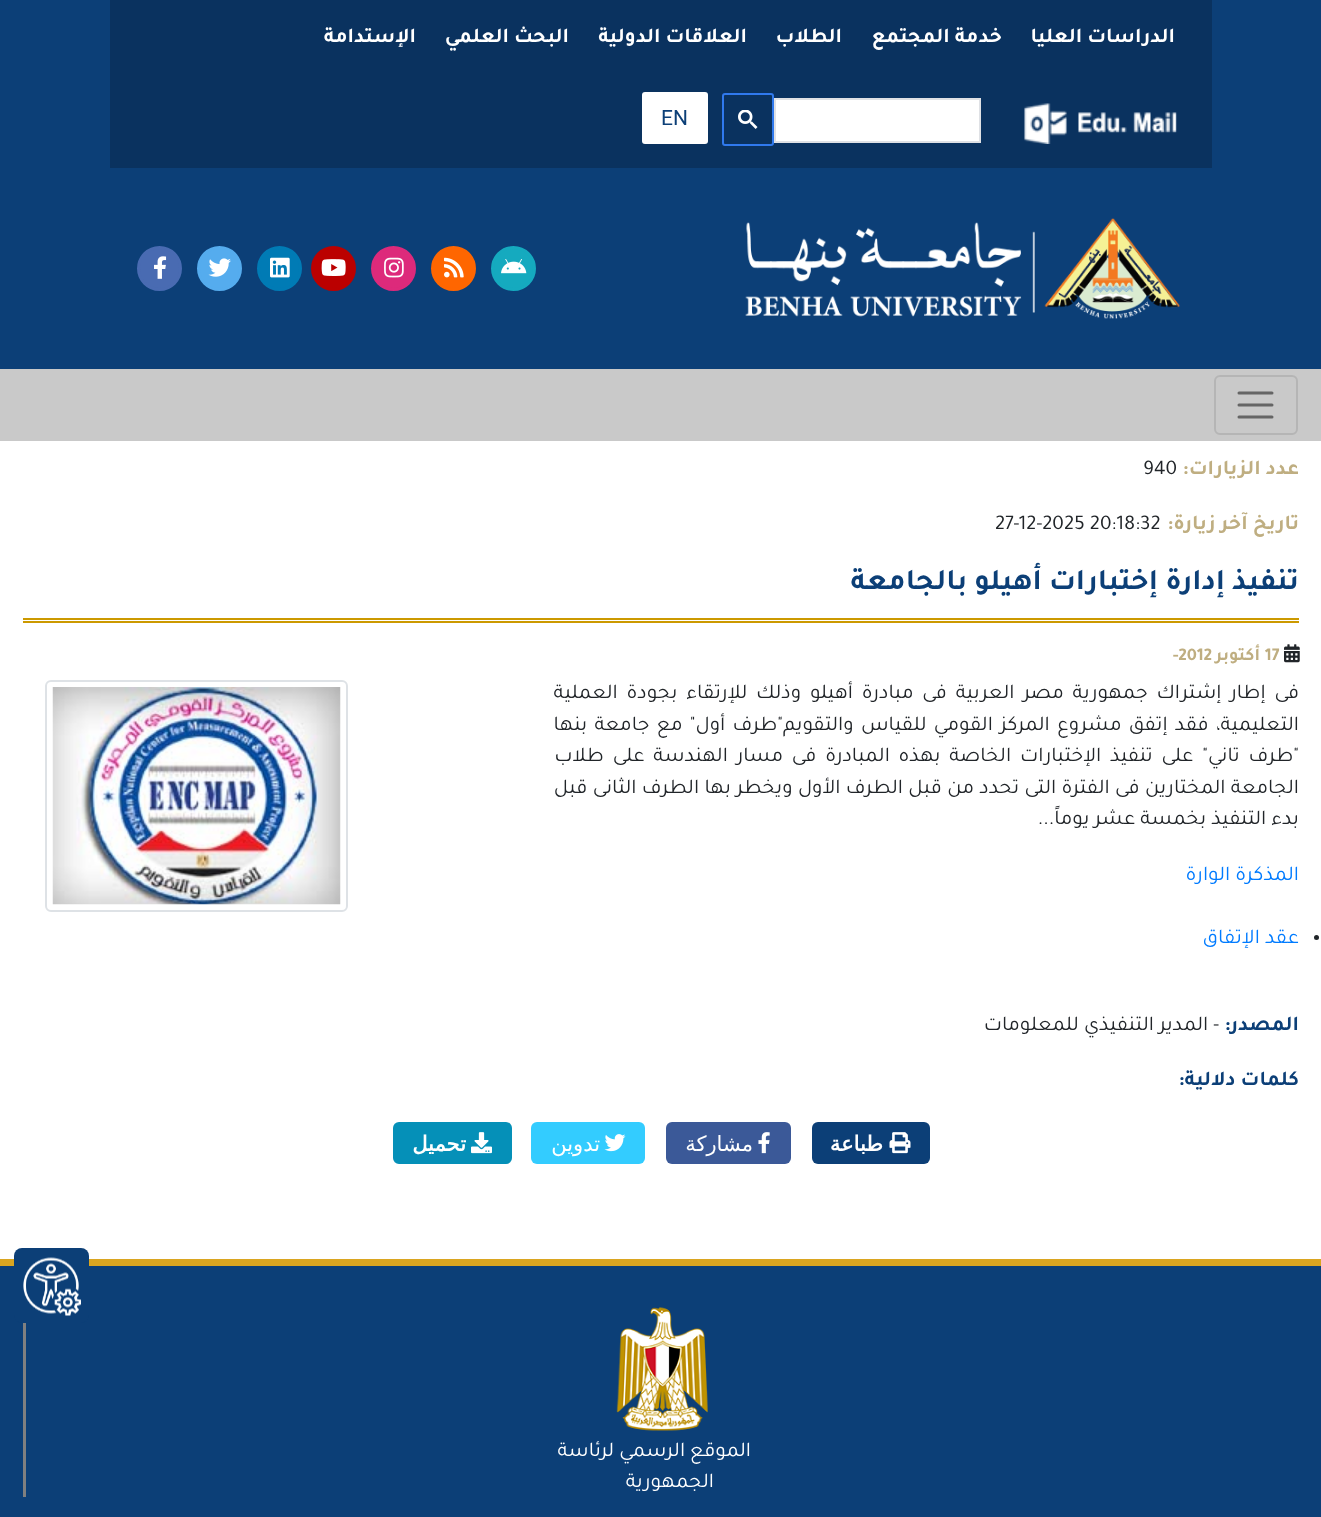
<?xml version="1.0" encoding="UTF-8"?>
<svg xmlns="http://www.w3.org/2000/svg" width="1321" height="1517">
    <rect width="100%" height="100%" fill="#FFFFFF"/>
    <rect x="0" y="0" width="1321" height="369" fill="#0C3F77"/>
    <rect x="110" y="0" width="1102" height="168" fill="#0A325F"/>
    <text x="1175" y="42" font-family="Tajawal" font-size="21" font-weight="700" direction="rtl" fill="#FFFFFF">الدراسات العليا</text>
    <text x="1002" y="42" font-family="Tajawal" font-size="21" font-weight="700" direction="rtl" fill="#FFFFFF">خدمة المجتمع</text>
    <text x="842" y="42" font-family="Tajawal" font-size="21" font-weight="700" direction="rtl" fill="#FFFFFF">الطلاب</text>
    <text x="747" y="42" font-family="Tajawal" font-size="21" font-weight="700" direction="rtl" fill="#FFFFFF">العلاقات الدولية</text>
    <text x="569" y="42" font-family="Tajawal" font-size="21" font-weight="700" direction="rtl" fill="#FFFFFF">البحث العلمي</text>
    <text x="416" y="42" font-family="Tajawal" font-size="21" font-weight="700" direction="rtl" fill="#FFFFFF">الإستدامة</text>
    <image x="1024" y="103" width="153" height="41" href="img_01.png"/>
    <rect x="775" y="99" width="205" height="43" fill="#FFFFFF" stroke="#DFE1E5" stroke-width="2"/>
    <rect x="723" y="94" width="50" height="51" rx="2" fill="none" stroke="#3079ED" stroke-width="2"/>
    <image x="738" y="110" width="20" height="19" href="img_02.png"/>
    <rect x="642" y="92" width="66" height="52" rx="3" fill="#FFFFFF"/>
    <text x="661" y="125" font-family="Roboto" font-size="21" fill="#0C3F77">EN</text>
    <image x="745" y="218" width="435" height="101" href="img_03.png"/>
    <circle cx="513.5" cy="268.5" r="21" fill="#15AABF" stroke="#15AABF" stroke-width="3"/>
    <image x="501" y="259" width="26" height="15" href="img_04.png"/>
    <circle cx="453.5" cy="268.5" r="21" fill="#FF6600" stroke="#FF6600" stroke-width="3"/>
    <image x="444" y="257" width="20" height="21" href="img_05.png"/>
    <circle cx="393.5" cy="268.5" r="21" fill="#DD2A7B" stroke="#DD2A7B" stroke-width="3"/>
    <image x="384" y="257" width="20" height="21" href="img_06.png"/>
    <circle cx="333.5" cy="268.5" r="21" fill="#BB0000" stroke="#BB0000" stroke-width="3"/>
    <image x="321" y="259" width="25" height="17" href="img_07.png"/>
    <circle cx="279.5" cy="268.5" r="21" fill="#007BB5" stroke="#007BB5" stroke-width="3"/>
    <image x="270" y="257" width="20" height="21" href="img_08.png"/>
    <circle cx="219.5" cy="268.5" r="21" fill="#55ACEE" stroke="#55ACEE" stroke-width="3"/>
    <image x="208" y="258" width="23" height="19" href="img_09.png"/>
    <circle cx="159.5" cy="268.5" r="21" fill="#496BB2" stroke="#496BB2" stroke-width="3"/>
    <image x="154" y="256" width="13" height="23" href="img_10.png"/>
    <rect x="0" y="369" width="1321" height="72" fill="#C9C9C9"/>
    <rect x="1215" y="376" width="82" height="58" rx="5" fill="none" stroke="#B5B5B5" stroke-width="2"/>
    <path d="M 1239 393 H 1272 M 1239 405 H 1272 M 1239 417 H 1272" fill="none" stroke="#656565" stroke-width="3" stroke-linecap="round"/>
    <text x="1299" y="474" font-family="Tajawal" font-size="21" font-weight="700" direction="rtl" fill="#BFAE81">عدد الزيارات:</text>
    <text x="1143" y="474" font-family="Tajawal" font-size="21" fill="#212529">940</text>
    <text x="1299" y="529" font-family="Tajawal" font-size="21" font-weight="700" direction="rtl" fill="#BFAE81">تاريخ آخر زيارة:</text>
    <text x="995" y="529" font-family="Tajawal" font-size="21" fill="#212529">27-12-2025 20:18:32</text>
    <rect x="23" y="618" width="1276" height="2" fill="#CC9900"/>
    <rect x="23" y="621" width="1276" height="2" fill="#CC9900"/>
    <text x="1299" y="589" font-family="Tajawal" font-size="30" font-weight="700" direction="rtl" fill="#0C3F77">تنفيذ إدارة إختبارات أهيلو بالجامعة</text>
    <image x="1284" y="644" width="16" height="19" href="img_11.png"/>
    <text x="1265" y="660" font-family="Tajawal" font-size="18" font-weight="700" fill="#BFAE81">17</text>
    <text x="1260" y="660" font-family="Tajawal" font-size="18" font-weight="700" direction="rtl" fill="#BFAE81">أكتوبر</text>
    <text x="1173" y="660" font-family="Tajawal" font-size="18" font-weight="700" fill="#BFAE81">-2012</text>
    <text font-family="Tajawal" font-size="21" direction="rtl" fill="#212529">
        <tspan x="1299" y="698" word-spacing="3.75">فى إطار إشتراك جمهورية مصر العربية فى مبادرة أهيلو وذلك للإرتقاء بجودة العملية</tspan>
        <tspan x="1299" y="730" word-spacing="2.25">التعليمية، فقد إتفق مشروع المركز القومي للقياس والتقويم"طرف أول" مع جامعة بنها</tspan>
        <tspan x="1299" y="761" word-spacing="3.75">"طرف تاني" على تنفيذ الإختبارات الخاصة بهذه المبادرة فى مسار الهندسة على طلاب</tspan>
        <tspan x="1299" y="793" word-spacing="0.25">الجامعة المختارين فى الفترة التى تحدد من قبل الطرف الأول ويخطر بها الطرف الثانى قبل</tspan>
        <tspan x="1299" y="824">بدء التنفيذ بخمسة عشر يوماً...</tspan>
    </text>
    <rect x="46" y="681" width="301" height="230" rx="5" fill="none" stroke="#DEE2E6" stroke-width="2"/>
    <image x="52" y="687" width="289" height="218" href="img_12.png"/>
    <text x="1299" y="880" font-family="Tajawal" font-size="21" direction="rtl" fill="#007BFF">المذكرة الوارة</text>
    <circle cx="1316.5" cy="937.5" r="2.5" fill="#212529"/>
    <text x="1299" y="943" font-family="Tajawal" font-size="21" direction="rtl" fill="#007BFF">عقد الإتفاق</text>
    <text x="1299" y="1030" font-family="Tajawal" font-size="21" font-weight="700" direction="rtl" fill="#0C3F77">المصدر:</text>
    <text x="1219" y="1030" font-family="Tajawal" font-size="21" direction="rtl" fill="#212529">- المدير التنفيذي للمعلومات</text>
    <text x="1299" y="1085" font-family="Tajawal" font-size="21" font-weight="700" direction="rtl" fill="#0C3F77">كلمات دلالية:</text>
    <rect x="812" y="1122" width="118" height="42" rx="6" fill="#0C3F77"/>
    <image x="889" y="1132" width="22" height="22" href="img_13.png"/>
    <text x="883" y="1151" font-family="DejaVu Sans" font-size="21" font-weight="700" direction="rtl" fill="#FFFFFF">طباعة</text>
    <rect x="666" y="1122" width="125" height="42" rx="6" fill="#3B5998"/>
    <image x="758" y="1132" width="12" height="22" href="img_14.png"/>
    <text x="753" y="1151" font-family="DejaVu Sans" font-size="21" direction="rtl" fill="#FFFFFF">مشاركة</text>
    <rect x="531" y="1122" width="114" height="42" rx="6" fill="#33CCFF"/>
    <image x="604" y="1134" width="22" height="18" href="img_15.png"/>
    <text x="600" y="1151" font-family="DejaVu Sans" font-size="21" direction="rtl" fill="#FFFFFF">تدوين</text>
    <rect x="393" y="1122" width="119" height="42" rx="6" fill="#0590B8"/>
    <image x="471" y="1132" width="21" height="22" href="img_16.png"/>
    <text x="466" y="1151" font-family="DejaVu Sans" font-size="21" font-weight="700" direction="rtl" fill="#FFFFFF">تحميل</text>
    <rect x="0" y="1266" width="1321" height="251" fill="#0C3F77"/>
    <rect x="0" y="1259" width="1321" height="7" fill="#DAA520"/>
    <rect x="14" y="1248" width="75" height="75" rx="8" fill="#0C3F77"/>
    <image x="23" y="1257" width="58" height="59" href="img_17.png"/>
    <image x="616" y="1307" width="92" height="124" href="img_18.png"/>
    <rect x="23" y="1323" width="3" height="174" fill="#808080"/>
    <text x="751" y="1456" font-family="Tajawal" font-size="21" direction="rtl" fill="#FFFFFF">الموقع الرسمي لرئاسة</text>
    <text x="714" y="1487" font-family="Tajawal" font-size="21" direction="rtl" fill="#FFFFFF">الجمهورية</text>
</svg>
